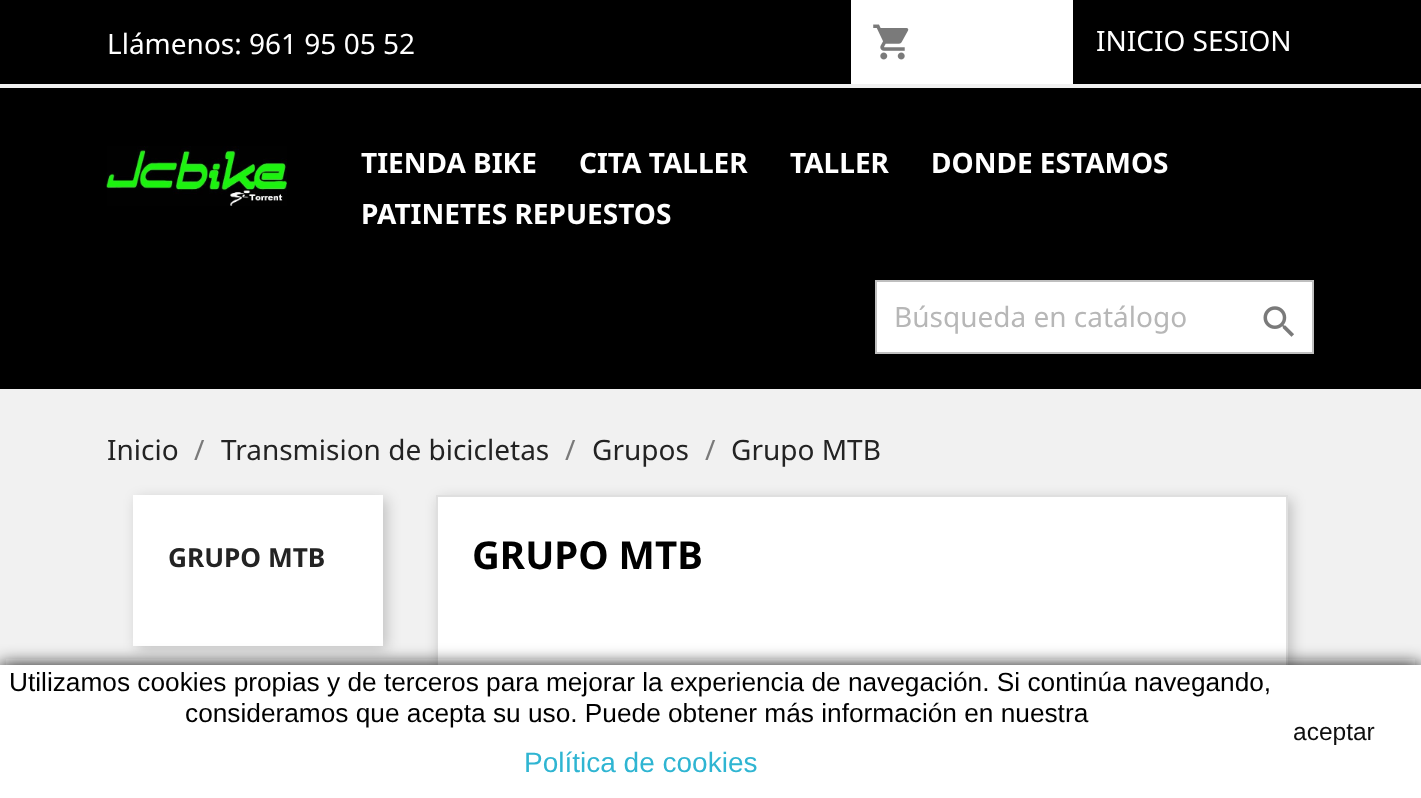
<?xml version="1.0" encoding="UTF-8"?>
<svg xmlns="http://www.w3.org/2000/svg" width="1421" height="798">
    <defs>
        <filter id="blur1" x="-50%" y="-200%" width="200%" height="500%"><feGaussianBlur stdDeviation="7"/></filter>
        <filter id="blur2" x="-50%" y="-200%" width="200%" height="500%"><feGaussianBlur stdDeviation="9"/></filter>
    </defs>
    <rect width="100%" height="100%" fill="#000000"/>
    <rect x="0" y="84" width="1421" height="4" fill="#F1F1F1"/>
    <text x="107" y="54" font-family="Noto Sans" font-size="28" fill="#FFFFFF">Llámenos: 961 95 05 52</text>
    <rect x="851" y="0" width="222" height="84" fill="#FFFFFF"/>
    <image x="873" y="24" width="36" height="36" href="img_01.png"/>
    <text x="1096" y="51" font-family="Noto Sans" font-size="28" fill="#FFFFFF">INICIO SESION</text>
    <image x="106" y="146" width="181" height="60" href="img_02.png"/>
    <text x="361" y="173" font-family="Noto Sans" font-size="28" font-weight="700" fill="#FFFFFF">TIENDA BIKE</text>
    <text x="579" y="173" font-family="Noto Sans" font-size="28" font-weight="700" fill="#FFFFFF">CITA TALLER</text>
    <text x="790" y="173" font-family="Noto Sans" font-size="28" font-weight="700" fill="#FFFFFF">TALLER</text>
    <text x="931" y="173" font-family="Noto Sans" font-size="28" font-weight="700" fill="#FFFFFF">DONDE ESTAMOS</text>
    <text x="361" y="224" font-family="Noto Sans" font-size="28" font-weight="700" fill="#FFFFFF">PATINETES REPUESTOS</text>
    <rect x="876" y="281" width="437" height="72" fill="#FFFFFF" stroke="#BFBFBF" stroke-width="2"/>
    <text x="894" y="327" font-family="Noto Sans" font-size="28" fill="#B7B7B7">Búsqueda en catálogo</text>
    <image x="1263" y="306" width="31" height="31" href="img_03.png"/>
    <rect x="0" y="389" width="1421" height="276" fill="#F1F1F1"/>
    <text x="107" y="460" font-family="Noto Sans" font-size="28" fill="#232323">Inicio</text>
    <text x="194" y="460" font-family="Noto Sans" font-size="28" fill="#7A7A7A">/</text>
    <text x="221" y="460" font-family="Noto Sans" font-size="28" fill="#232323">Transmision de bicicletas</text>
    <text x="565" y="460" font-family="Noto Sans" font-size="28" fill="#7A7A7A">/</text>
    <text x="592" y="460" font-family="Noto Sans" font-size="28" fill="#232323">Grupos</text>
    <text x="705" y="460" font-family="Noto Sans" font-size="28" fill="#7A7A7A">/</text>
    <text x="731" y="460" font-family="Noto Sans" font-size="28" fill="#232323">Grupo MTB</text>
    <rect x="137" y="499" width="250" height="150" fill="#000000" fill-opacity="0.2" filter="url(#blur1)"/>
    <rect x="133" y="495" width="250" height="151" fill="#FFFFFF"/>
    <text x="168" y="567" font-family="Noto Sans" font-size="26.25" font-weight="700" fill="#232323">GRUPO MTB</text>
    <rect x="439" y="499" width="853" height="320" fill="#000000" fill-opacity="0.2" filter="url(#blur1)"/>
    <rect x="438" y="497" width="848" height="168" fill="#FFFFFF"/>
    <rect x="437" y="496" width="850" height="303" fill="none" stroke="#DFDFDF" stroke-width="2"/>
    <text x="472" y="569" font-family="Noto Sans" font-size="38.5" font-weight="700" fill="#000000">GRUPO MTB</text>
    <rect x="0" y="665" width="1421" height="133" fill="#171717" filter="url(#blur2)"/>
    <rect x="0" y="665" width="1421" height="133" fill="#FFFFFF"/>
    <text x="9" y="691" font-family="Liberation Sans" font-size="26.25" fill="#000000">Utilizamos cookies propias y de terceros para mejorar la experiencia de navegación. Si continúa navegando,</text>
    <text x="185" y="722" font-family="Liberation Sans" font-size="26.25" fill="#000000">consideramos que acepta su uso. Puede obtener más información en nuestra</text>
    <text x="524" y="772" font-family="Liberation Sans" font-size="28" fill="#2FB5D2">Política de cookies</text>
    <text x="1293" y="740" font-family="Liberation Sans" font-size="24.5" fill="#0F0F0F">aceptar</text>
</svg>
